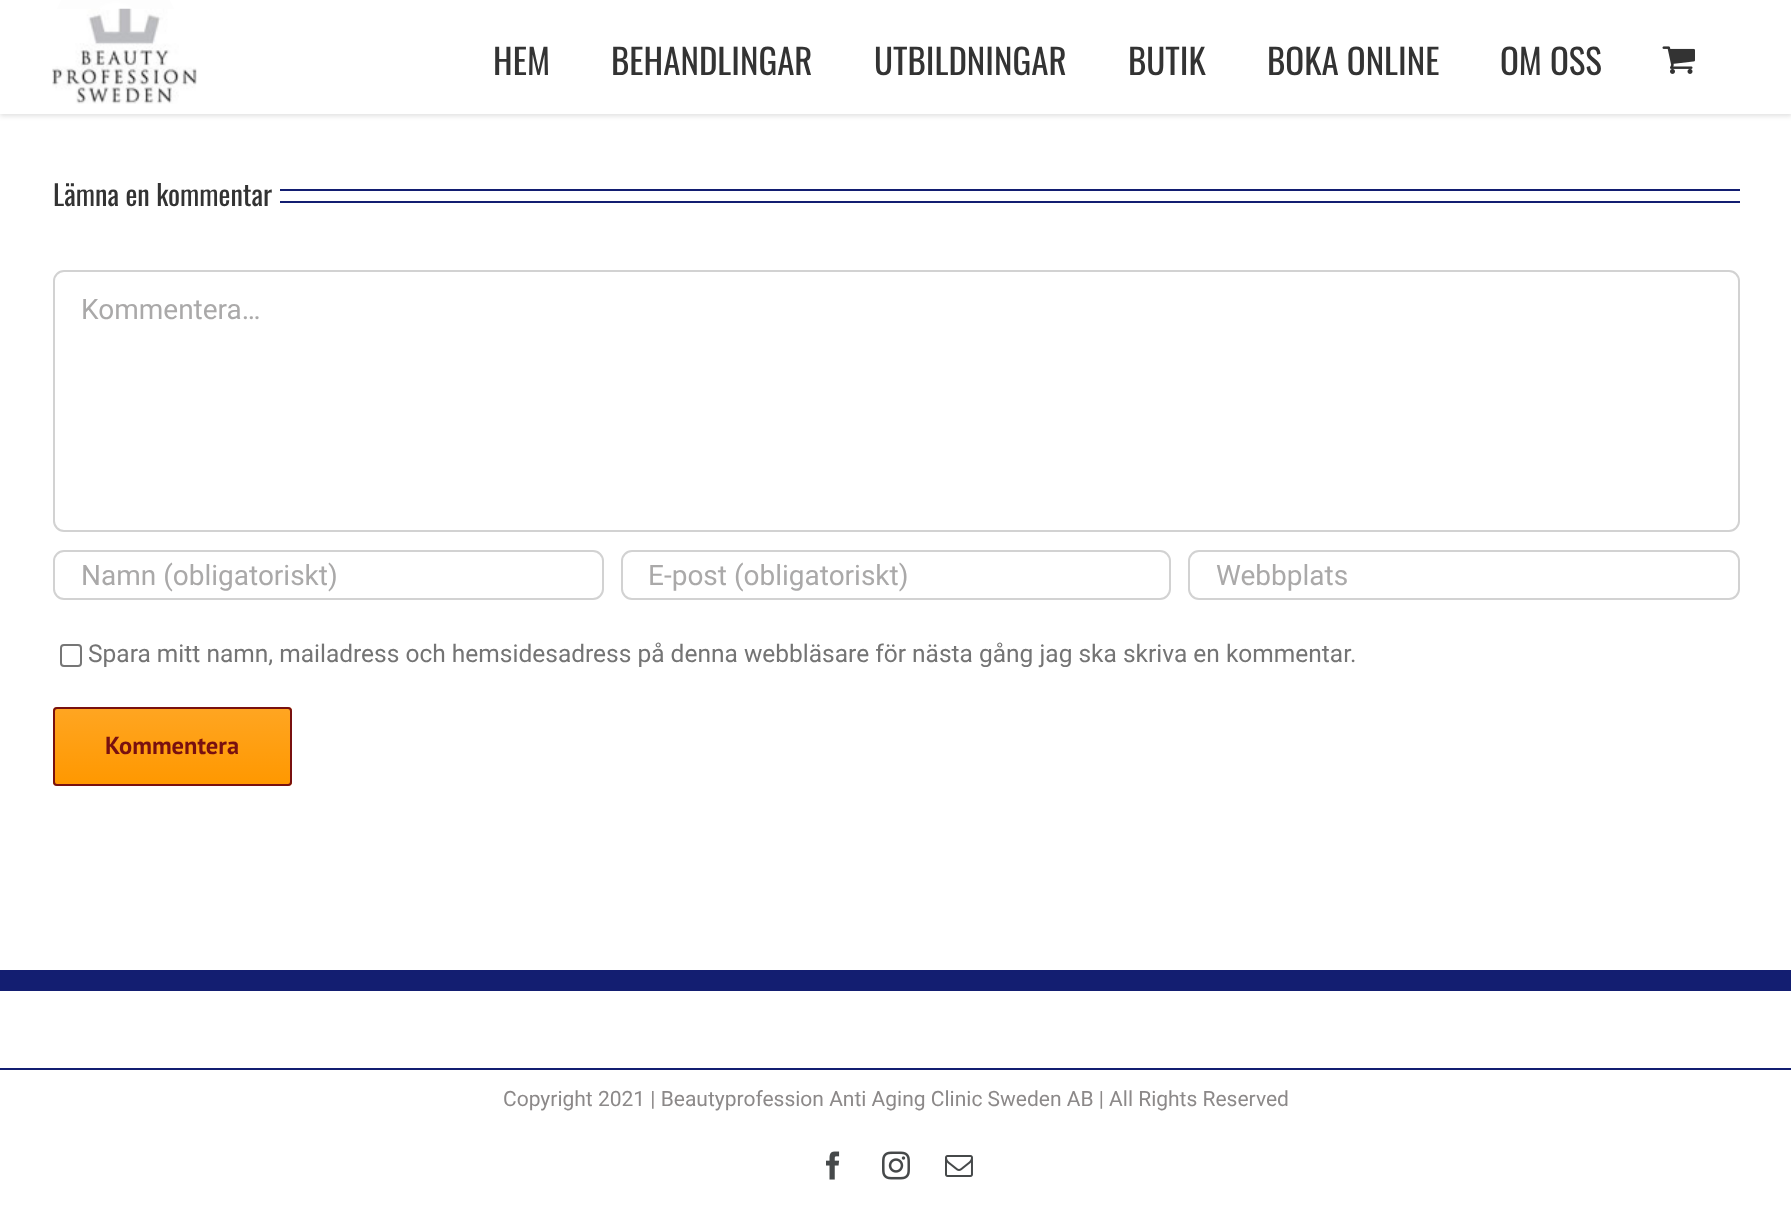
<?xml version="1.0" encoding="UTF-8"?>
<svg xmlns="http://www.w3.org/2000/svg" width="1791" height="1212">
    <defs>
        <clipPath id="clip1"><path d="M 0 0 H 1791 V 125 H 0 Z M 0 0 H 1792 V 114 H 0 Z" clip-rule="evenodd"/></clipPath>
        <filter id="blur1" x="-50%" y="-200%" width="200%" height="500%"><feGaussianBlur stdDeviation="2.5"/></filter>
        <clipPath id="clip2"><rect x="53" y="707" width="239" height="79" rx="4"/></clipPath>
        <linearGradient id="g1" gradientUnits="userSpaceOnUse" x1="172" y1="709" x2="172" y2="784"><stop offset="0" stop-color="#FF9800" stop-opacity="0.64"/><stop offset="1" stop-color="#FF9800"/></linearGradient>
    </defs>
    <rect width="100%" height="100%" fill="#FFFFFF"/>
    <image x="52" y="0" width="123" height="39" href="img_03.png"/>
    <g clip-path="url(#clip1)">
        <rect x="0" y="2" width="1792" height="114" fill="#000000" fill-opacity="0.12" filter="url(#blur1)"/>
    </g>
    <rect x="0" y="0" width="1791" height="114" fill="#FFFFFF" fill-opacity="0.97"/>
    <image x="52" y="8" width="145" height="96" href="img_01.png"/>
    <text x="493" y="75" font-family="Oswald" font-size="35" fill="#333333">HEM</text>
    <text x="611" y="75" font-family="Oswald" font-size="35" fill="#333333">BEHANDLINGAR</text>
    <text x="874" y="75" font-family="Oswald" font-size="35" fill="#333333">UTBILDNINGAR</text>
    <text x="1128" y="75" font-family="Oswald" font-size="35" fill="#333333">BUTIK</text>
    <text x="1267" y="75" font-family="Oswald" font-size="35" fill="#333333">BOKA ONLINE</text>
    <text x="1500" y="75" font-family="Oswald" font-size="35" fill="#333333">OM OSS</text>
    <image x="1662" y="46" width="33" height="28" href="img_02.png"/>
    <text x="53" y="206" font-family="Oswald" font-size="28.25" fill="#333333">Lämna en kommentar</text>
    <rect x="280" y="189" width="1460" height="2" fill="#131E71"/>
    <rect x="280" y="201" width="1460" height="2" fill="#131E71"/>
    <rect x="54" y="271" width="1685" height="260" rx="10" fill="none" stroke="#D2D2D2" stroke-width="2"/>
    <text x="81" y="319" font-family="Roboto" font-size="28" fill="#AAA9A9">Kommentera…</text>
    <rect x="54" y="551" width="549" height="48" rx="10" fill="none" stroke="#D2D2D2" stroke-width="2"/>
    <text x="81" y="585" font-family="Roboto" font-size="28" fill="#AAA9A9">Namn (obligatoriskt)</text>
    <rect x="622" y="551" width="548" height="48" rx="10" fill="none" stroke="#D2D2D2" stroke-width="2"/>
    <text x="648" y="585" font-family="Roboto" font-size="28" fill="#AAA9A9">E-post (obligatoriskt)</text>
    <rect x="1189" y="551" width="550" height="48" rx="10" fill="none" stroke="#D2D2D2" stroke-width="2"/>
    <text x="1216" y="585" font-family="Roboto" font-size="28" fill="#AAA9A9">Webbplats</text>
    <rect x="61" y="645" width="20" height="21" rx="3" fill="none" stroke="#767676" stroke-width="2"/>
    <text x="88" y="662" font-family="Roboto" font-size="24.5" fill="#747474">Spara mitt namn, mailadress och hemsidesadress på denna webbläsare för nästa gång jag ska skriva en kommentar.</text>
    <rect x="53" y="707" width="239" height="79" rx="4" fill="#FFBD5C"/>
    <g clip-path="url(#clip2)">
        <rect x="53" y="709" width="239" height="75" fill="url(#g1)"/>
    </g>
    <rect x="54" y="708" width="237" height="77" rx="3" fill="none" stroke="#781010" stroke-width="2"/>
    <text x="105" y="754" font-family="PT Sans" font-size="24.5" font-weight="700" fill="#781010">Kommentera</text>
    <rect x="0" y="970" width="1791" height="21" fill="#131E71"/>
    <rect x="0" y="1068" width="1791" height="2" fill="#131E71"/>
    <text x="503" y="1106" font-family="Roboto" font-size="21" fill="#8C8989">Copyright 2021 | Beautyprofession Anti Aging Clinic Sweden AB | All Rights Reserved</text>
    <image x="826" y="1151" width="14" height="29" href="img_04.png"/>
    <image x="882" y="1151" width="28" height="29" href="img_05.png"/>
    <image x="945" y="1155" width="28" height="22" href="img_06.png"/>
</svg>
